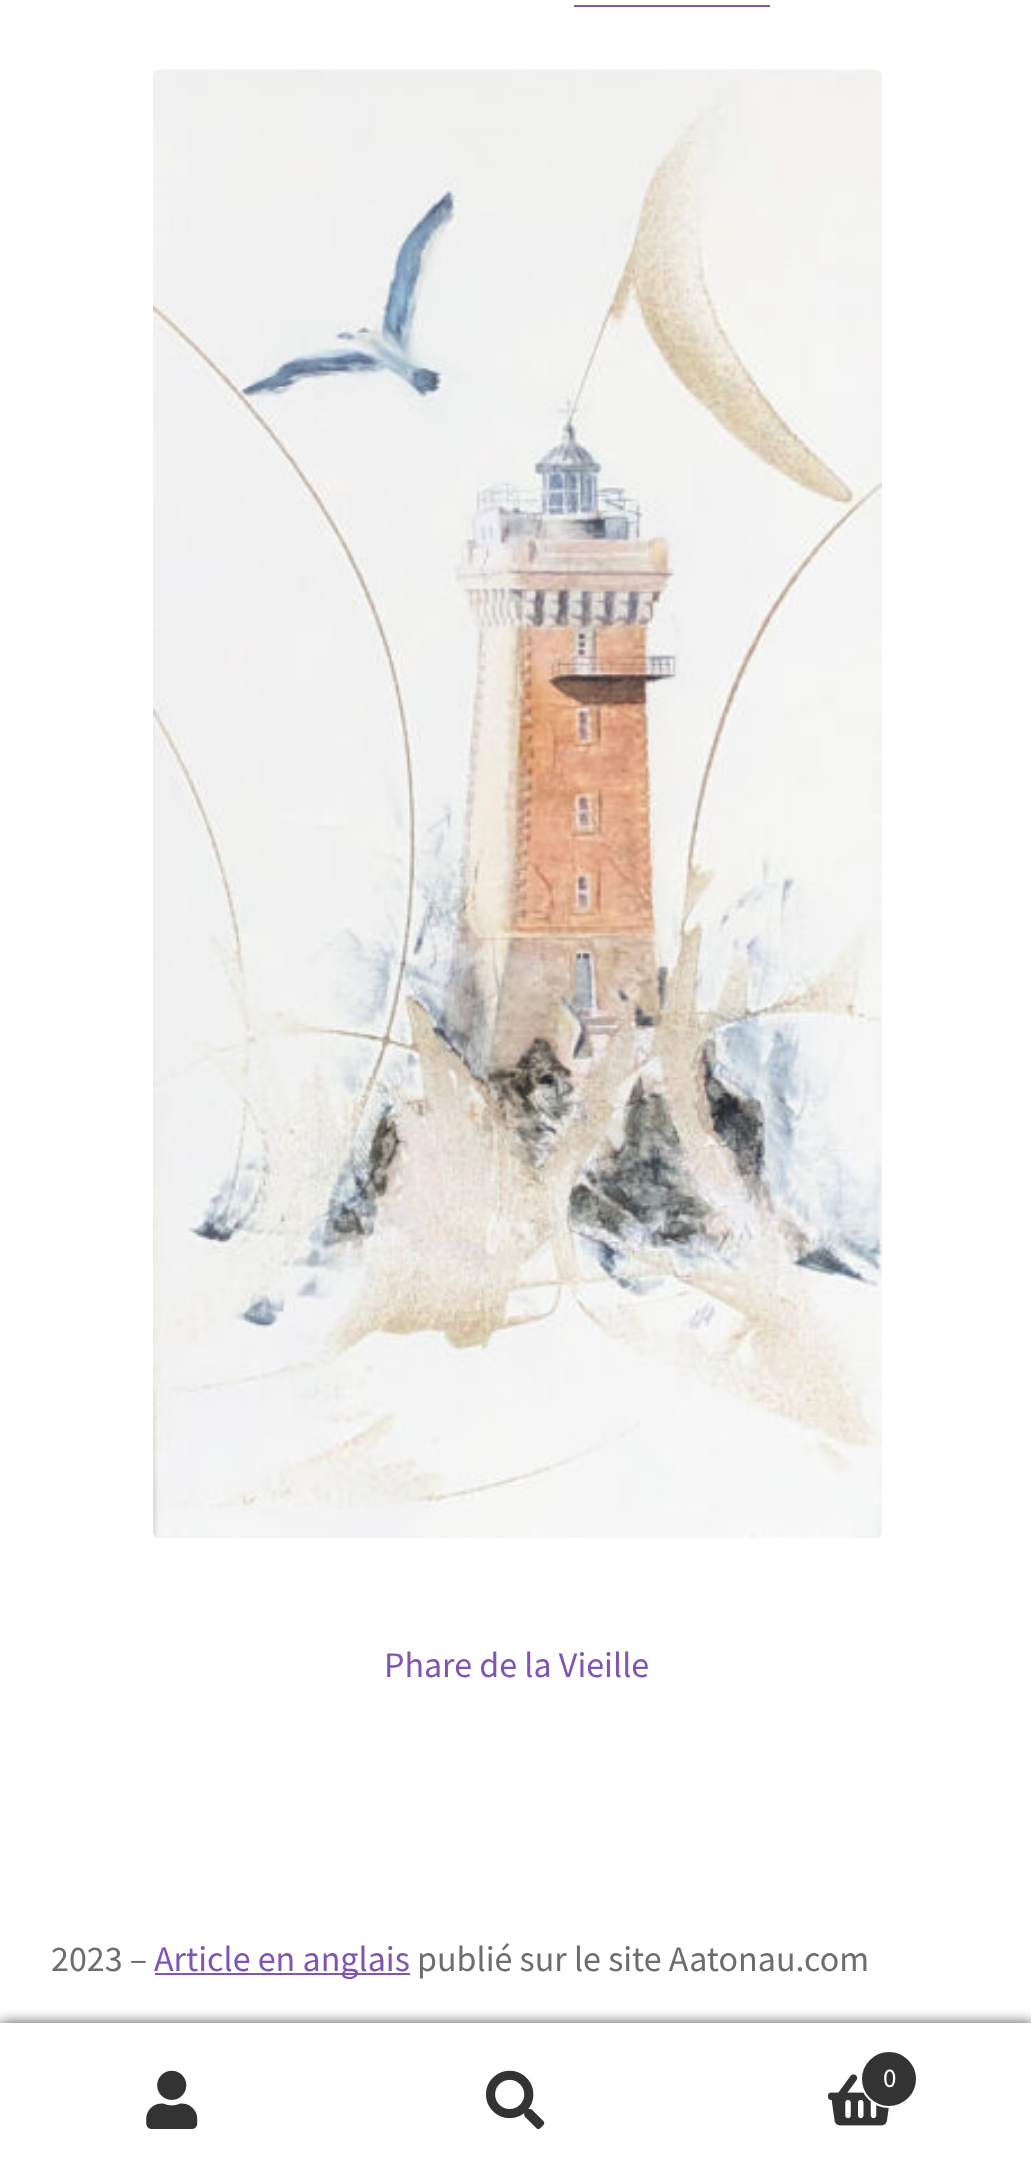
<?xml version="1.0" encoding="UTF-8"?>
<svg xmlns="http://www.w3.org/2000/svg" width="1031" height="2176">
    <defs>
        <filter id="blur1" x="-50%" y="-200%" width="200%" height="500%"><feGaussianBlur stdDeviation="7"/></filter>
    </defs>
    <rect width="100%" height="100%" fill="#FFFFFF"/>
    <rect x="574" y="5" width="196" height="2" fill="#7F54B3"/>
    <image x="153" y="69" width="729" height="1470" href="img_01.png"/>
    <text x="384" y="1677" font-family="Source Sans Pro" font-size="36" fill="#7F54B3">Phare de la Vieille</text>
    <text x="51" y="1971" font-family="Source Sans Pro" font-size="36" fill="#6D6D6D">2023 –</text>
    <rect x="155" y="1973" width="255" height="2" fill="#7F54B3"/>
    <text x="154" y="1971" font-family="Source Sans Pro" font-size="36" fill="#7F54B3">Article en anglais</text>
    <text x="417" y="1971" font-family="Source Sans Pro" font-size="36" fill="#6D6D6D">publié sur le site Aatonau.com</text>
    <rect x="0" y="2023" width="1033" height="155" fill="#000000" fill-opacity="0.7" filter="url(#blur1)"/>
    <rect x="0" y="2023" width="1031" height="2" fill="#FFFFFF"/>
    <rect x="0" y="2025" width="1031" height="151" fill="#FFFFFF"/>
    <image x="146" y="2070" width="52" height="59" href="img_02.png"/>
    <image x="486" y="2070" width="59" height="59" href="img_03.png"/>
    <image x="828" y="2074" width="61" height="52" href="img_04.png"/>
    <circle cx="889" cy="2079" r="28" fill="#333333" stroke="#FFFFFF" stroke-width="2"/>
    <text x="883" y="2087" font-family="Source Sans Pro" font-size="27" fill="#FFFFFF">0</text>
</svg>
